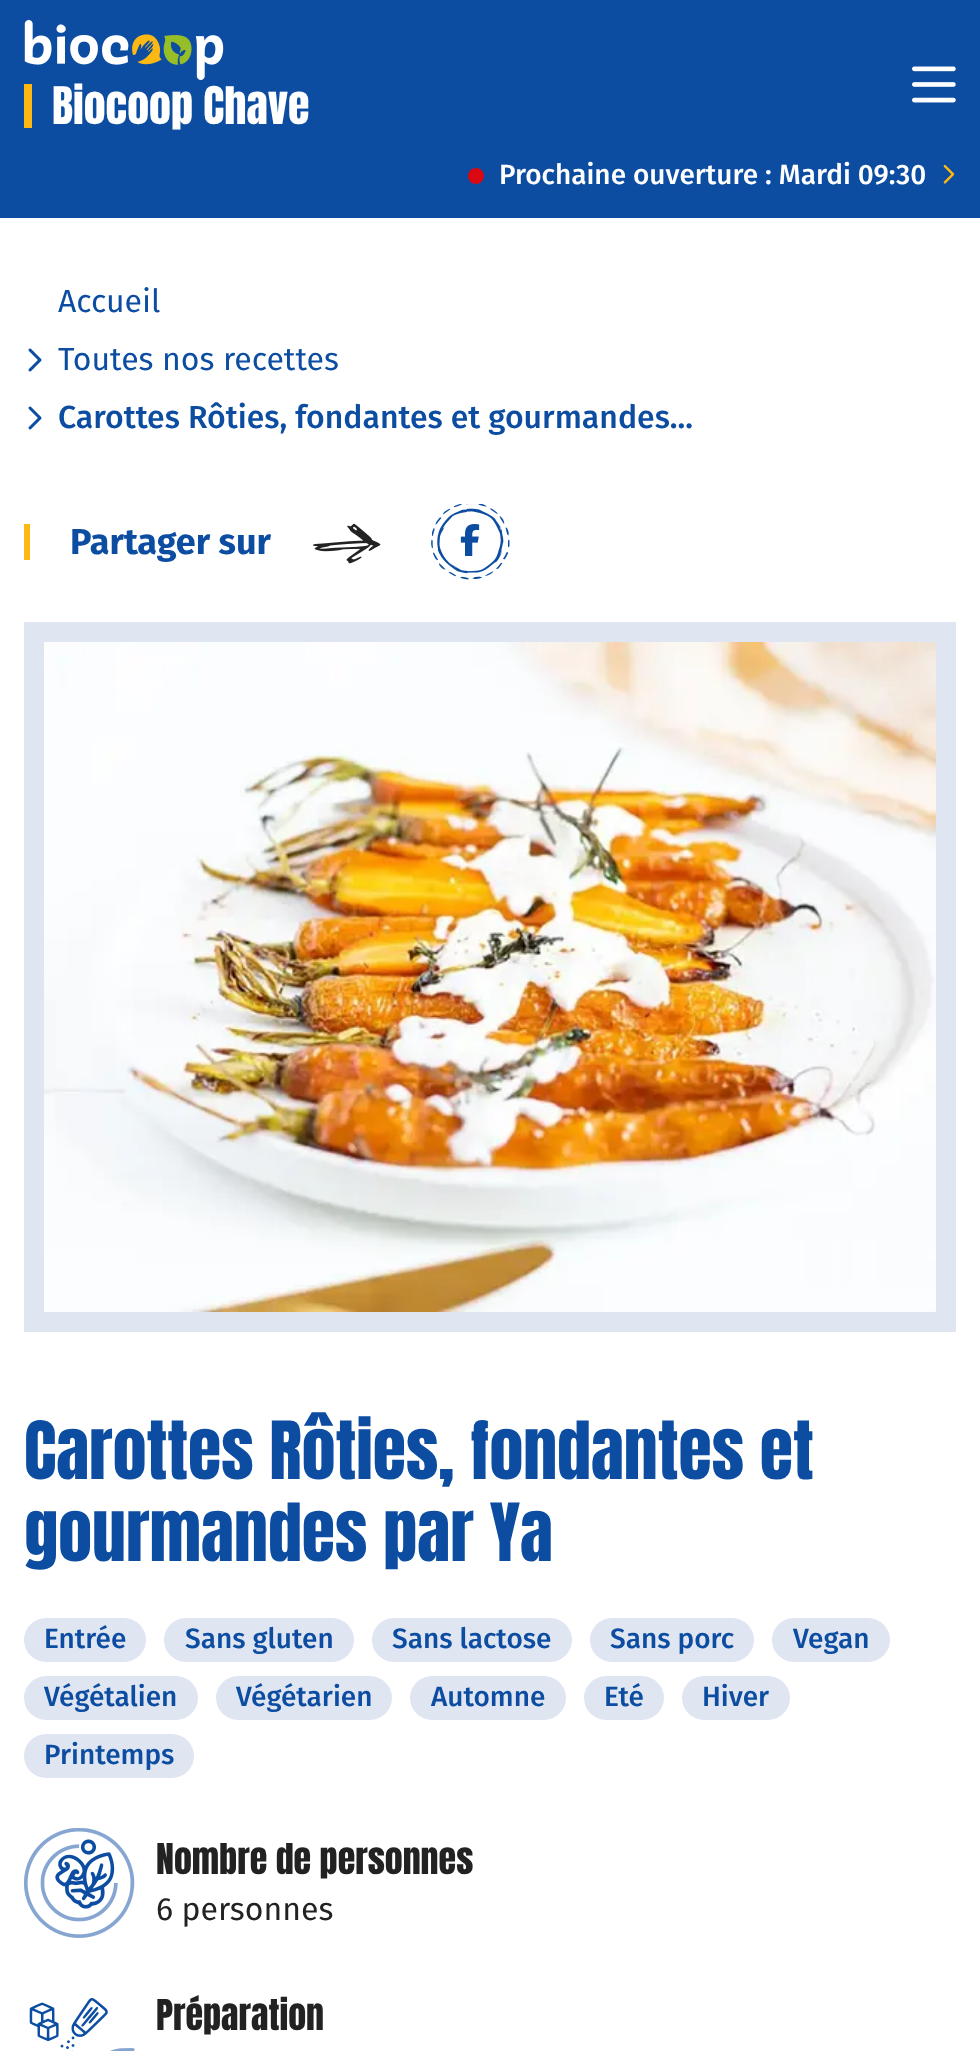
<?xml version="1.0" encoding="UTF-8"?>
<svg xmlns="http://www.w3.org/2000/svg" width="980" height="2051">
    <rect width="100%" height="100%" fill="#FFFFFF"/>
    <rect x="0" y="0" width="980" height="218" fill="#0C4DA2"/>
    <image x="24" y="20" width="200" height="60" href="img_01.png"/>
    <rect x="24" y="84" width="8" height="44" fill="#FDB813"/>
    <text x="52" y="124" font-family="Anton" font-size="44" fill="#FFFFFF">Biocoop Chave</text>
    <image x="912" y="66" width="44" height="37" href="img_02.png"/>
    <circle cx="476" cy="176" r="8" fill="#DA0812"/>
    <text x="499" y="184" font-family="Fira Sans" font-size="28" font-weight="500" fill="#FFFFFF">Prochaine ouverture : Mardi 09:30</text>
    <image x="943" y="164" width="12" height="20" href="img_03.png"/>
    <text x="58" y="312" font-family="Fira Sans" font-size="32" fill="#0C4DA2">Accueil</text>
    <image x="28" y="348" width="14" height="24" href="img_04.png"/>
    <text x="58" y="370" font-family="Fira Sans" font-size="32" fill="#0C4DA2">Toutes nos recettes</text>
    <image x="28" y="406" width="14" height="24" href="img_04.png"/>
    <text x="58" y="428" font-family="Fira Sans" font-size="32" font-weight="500" fill="#0C4DA2">Carottes Rôties, fondantes et gourmandes...</text>
    <rect x="24" y="524" width="6" height="36" fill="#FDB813"/>
    <text x="70" y="554" font-family="Fira Sans" font-size="36" font-weight="700" fill="#0C4DA2">Partager sur</text>
    <image x="312" y="523" width="69" height="41" href="img_05.png"/>
    <image x="431" y="504" width="79" height="76" href="img_06.png"/>
    <image x="460" y="524" width="20" height="32" href="img_07.png"/>
    <rect x="34" y="632" width="912" height="690" fill="none" stroke="#DFE5F1" stroke-width="20"/>
    <image x="44" y="642" width="892" height="670" href="img_08.png"/>
    <text font-family="Anton" font-size="68" fill="#0C4DA2">
        <tspan x="24" y="1479">Carottes Rôties, fondantes et</tspan>
        <tspan x="24" y="1561">gourmandes par Ya</tspan>
    </text>
    <rect x="24" y="1618" width="122" height="44" rx="22" fill="#DFE5F1"/>
    <text x="44" y="1648" font-family="Fira Sans" font-size="28" font-weight="500" fill="#0C4DA2">Entrée</text>
    <rect x="164" y="1618" width="190" height="44" rx="22" fill="#DFE5F1"/>
    <text x="185" y="1648" font-family="Fira Sans" font-size="28" font-weight="500" fill="#0C4DA2">Sans gluten</text>
    <rect x="372" y="1618" width="200" height="44" rx="22" fill="#DFE5F1"/>
    <text x="392" y="1648" font-family="Fira Sans" font-size="28" font-weight="500" fill="#0C4DA2">Sans lactose</text>
    <rect x="590" y="1618" width="164" height="44" rx="22" fill="#DFE5F1"/>
    <text x="610" y="1648" font-family="Fira Sans" font-size="28" font-weight="500" fill="#0C4DA2">Sans porc</text>
    <rect x="772" y="1618" width="118" height="44" rx="22" fill="#DFE5F1"/>
    <text x="793" y="1648" font-family="Fira Sans" font-size="28" font-weight="500" fill="#0C4DA2">Vegan</text>
    <rect x="24" y="1676" width="174" height="44" rx="22" fill="#DFE5F1"/>
    <text x="44" y="1706" font-family="Fira Sans" font-size="28" font-weight="500" fill="#0C4DA2">Végétalien</text>
    <rect x="216" y="1676" width="176" height="44" rx="22" fill="#DFE5F1"/>
    <text x="236" y="1706" font-family="Fira Sans" font-size="28" font-weight="500" fill="#0C4DA2">Végétarien</text>
    <rect x="410" y="1676" width="156" height="44" rx="22" fill="#DFE5F1"/>
    <text x="431" y="1706" font-family="Fira Sans" font-size="28" font-weight="500" fill="#0C4DA2">Automne</text>
    <rect x="584" y="1676" width="80" height="44" rx="22" fill="#DFE5F1"/>
    <text x="604" y="1706" font-family="Fira Sans" font-size="28" font-weight="500" fill="#0C4DA2">Eté</text>
    <rect x="682" y="1676" width="108" height="44" rx="22" fill="#DFE5F1"/>
    <text x="702" y="1706" font-family="Fira Sans" font-size="28" font-weight="500" fill="#0C4DA2">Hiver</text>
    <rect x="24" y="1734" width="170" height="44" rx="22" fill="#DFE5F1"/>
    <text x="44" y="1764" font-family="Fira Sans" font-size="28" font-weight="500" fill="#0C4DA2">Printemps</text>
    <image x="24" y="1828" width="111" height="110" href="img_09.png"/>
    <text x="156" y="1874" font-family="Anton" font-size="36" fill="#222222">Nombre de personnes</text>
    <text x="156" y="1920" font-family="Fira Sans" font-size="32" fill="#222222">6 personnes</text>
    <image x="29" y="1998" width="106" height="53" href="img_10.png"/>
    <text x="156" y="2030" font-family="Anton" font-size="36" fill="#222222">Préparation</text>
</svg>
